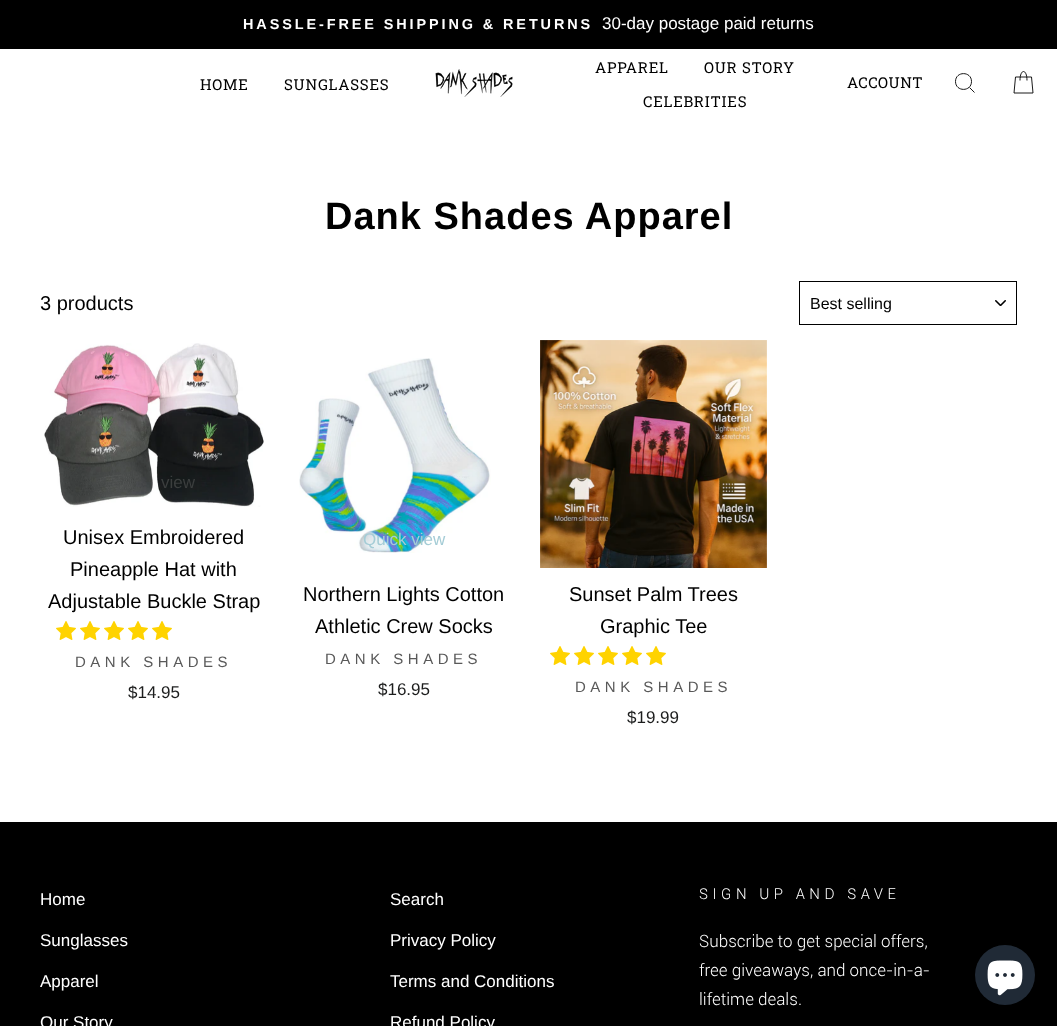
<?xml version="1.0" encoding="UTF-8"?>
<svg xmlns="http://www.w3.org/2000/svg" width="1057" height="1026">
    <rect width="100%" height="100%" fill="#FFFFFF"/>
    <rect x="0" y="0" width="1057" height="49" fill="#000000"/>
    <text x="243" y="29" font-family="Arimo" font-size="14.45" font-weight="700" letter-spacing="2.9" fill="#FFFFFF">HASSLE-FREE SHIPPING &amp; RETURNS</text>
    <text x="602" y="29" font-family="Arimo" font-size="17" fill="#FFFFFF">30-day postage paid returns</text>
    <text x="200" y="90" font-family="Roboto Slab" font-size="15" letter-spacing="0.75" fill="#000000">HOME</text>
    <text x="284" y="90" font-family="Roboto Slab" font-size="15" letter-spacing="0.75" fill="#000000">SUNGLASSES</text>
    <image x="435" y="69" width="78" height="28" href="img_01.png"/>
    <text x="595" y="73" font-family="Roboto Slab" font-size="15" letter-spacing="0.75" fill="#000000">APPAREL</text>
    <text x="704" y="73" font-family="Roboto Slab" font-size="15" letter-spacing="0.75" fill="#000000">OUR STORY</text>
    <text x="643" y="107" font-family="Roboto Slab" font-size="15" letter-spacing="0.75" fill="#000000">CELEBRITIES</text>
    <text x="847" y="88" font-family="Roboto Slab" font-size="15" letter-spacing="0.5" fill="#000000">ACCOUNT</text>
    <path d="M 971.5 81.5 C 971.5 92 955.5 92 955.5 81.5 C 955.5 71 971.5 71 971.5 81.5 Z M 974.5 92.5 L 969.5 87.5" fill="none" stroke="#000000" stroke-width="0.9"/>
    <path d="M 1020 80.5 C 1020 68.5 1027 68.5 1027 80.5 M 1015.5 77 H 1031.5 L 1033 93 H 1014 Z" fill="none" stroke="#000000" stroke-width="0.9"/>
    <text x="325" y="229" font-family="Arimo" font-size="38" font-weight="700" letter-spacing="1" fill="#000000">Dank Shades Apparel</text>
    <text x="40" y="310" font-family="Arimo" font-size="20" fill="#000000">3 products</text>
    <image x="995" y="300" width="11" height="6" href="img_02.png"/>
    <rect x="799.5" y="281.5" width="217" height="43" fill="none" stroke="#000000"/>
    <text x="810" y="309" font-family="Arimo" font-size="16" fill="#000000">Best selling</text>
    <image x="44" y="343" width="220" height="164" href="img_03.png"/>
    <text x="161" y="488" font-family="Arimo" font-size="17" fill="#3B3E3E">view</text>
    <text x="63" y="544" font-family="Arimo" font-size="20" fill="#000000">Unisex Embroidered</text>
    <text x="70" y="576" font-family="Arimo" font-size="20" fill="#000000">Pineapple Hat with</text>
    <text x="48" y="608" font-family="Arimo" font-size="20" fill="#000000">Adjustable Buckle Strap</text>
    <image x="56" y="621" width="20" height="19" href="img_04.png"/>
    <image x="80" y="621" width="20" height="19" href="img_04.png"/>
    <image x="104" y="621" width="20" height="19" href="img_04.png"/>
    <image x="128" y="621" width="20" height="19" href="img_04.png"/>
    <image x="152" y="621" width="20" height="19" href="img_04.png"/>
    <text x="75" y="667" font-family="Arimo" font-size="15" letter-spacing="4.5" fill="#595959">DANK SHADES</text>
    <text x="128" y="698" font-family="Arimo" font-size="17" fill="#1C1D1D">$14.95</text>
    <image x="299" y="358" width="192" height="195" href="img_05.png"/>
    <text x="363" y="545" font-family="Arimo" font-size="17" fill="#A4CCD6">Quick view</text>
    <text x="303" y="601" font-family="Arimo" font-size="20" fill="#000000">Northern Lights Cotton</text>
    <text x="315" y="633" font-family="Arimo" font-size="20" fill="#000000">Athletic Crew Socks</text>
    <text x="325" y="664" font-family="Arimo" font-size="15" letter-spacing="4.5" fill="#595959">DANK SHADES</text>
    <text x="378" y="695" font-family="Arimo" font-size="17" fill="#1C1D1D">$16.95</text>
    <image x="540" y="340" width="227" height="228" href="img_06.png"/>
    <text x="569" y="601" font-family="Arimo" font-size="20" fill="#000000">Sunset Palm Trees</text>
    <text x="600" y="633" font-family="Arimo" font-size="20" fill="#000000">Graphic Tee</text>
    <image x="550" y="646" width="20" height="19" href="img_04.png"/>
    <image x="574" y="646" width="20" height="19" href="img_04.png"/>
    <image x="598" y="646" width="20" height="19" href="img_04.png"/>
    <image x="622" y="646" width="20" height="19" href="img_04.png"/>
    <image x="646" y="646" width="20" height="19" href="img_04.png"/>
    <text x="575" y="692" font-family="Arimo" font-size="15" letter-spacing="4.5" fill="#595959">DANK SHADES</text>
    <text x="627" y="723" font-family="Arimo" font-size="17" fill="#1C1D1D">$19.99</text>
    <rect x="0" y="822" width="1057" height="204" fill="#000000"/>
    <text x="40" y="905" font-family="Arimo" font-size="17" fill="#FFFFFF">Home</text>
    <text x="40" y="946" font-family="Arimo" font-size="17" fill="#FFFFFF">Sunglasses</text>
    <text x="40" y="987" font-family="Arimo" font-size="17" fill="#FFFFFF">Apparel</text>
    <text x="40" y="1028" font-family="Arimo" font-size="17" fill="#FFFFFF">Our Story</text>
    <text x="390" y="905" font-family="Arimo" font-size="17" fill="#FFFFFF">Search</text>
    <text x="390" y="946" font-family="Arimo" font-size="17" fill="#FFFFFF">Privacy Policy</text>
    <text x="390" y="987" font-family="Arimo" font-size="17" fill="#FFFFFF">Terms and Conditions</text>
    <text x="390" y="1028" font-family="Arimo" font-size="17" fill="#FFFFFF">Refund Policy</text>
    <text x="699" y="899" font-family="Roboto" font-size="15" font-weight="300" letter-spacing="4.5" fill="#FFFFFF">SIGN UP AND SAVE</text>
    <text font-family="Roboto" font-size="17" font-weight="300" fill="#FFFFFF">
        <tspan x="699" y="947">Subscribe to get special offers,</tspan>
        <tspan x="699" y="976">free giveaways, and once-in-a-</tspan>
        <tspan x="699" y="1005">lifetime deals.</tspan>
    </text>
    <circle cx="1005" cy="975" r="30" fill="#202A36"/>
    <image x="987" y="960" width="36" height="36" href="img_07.png"/>
</svg>
